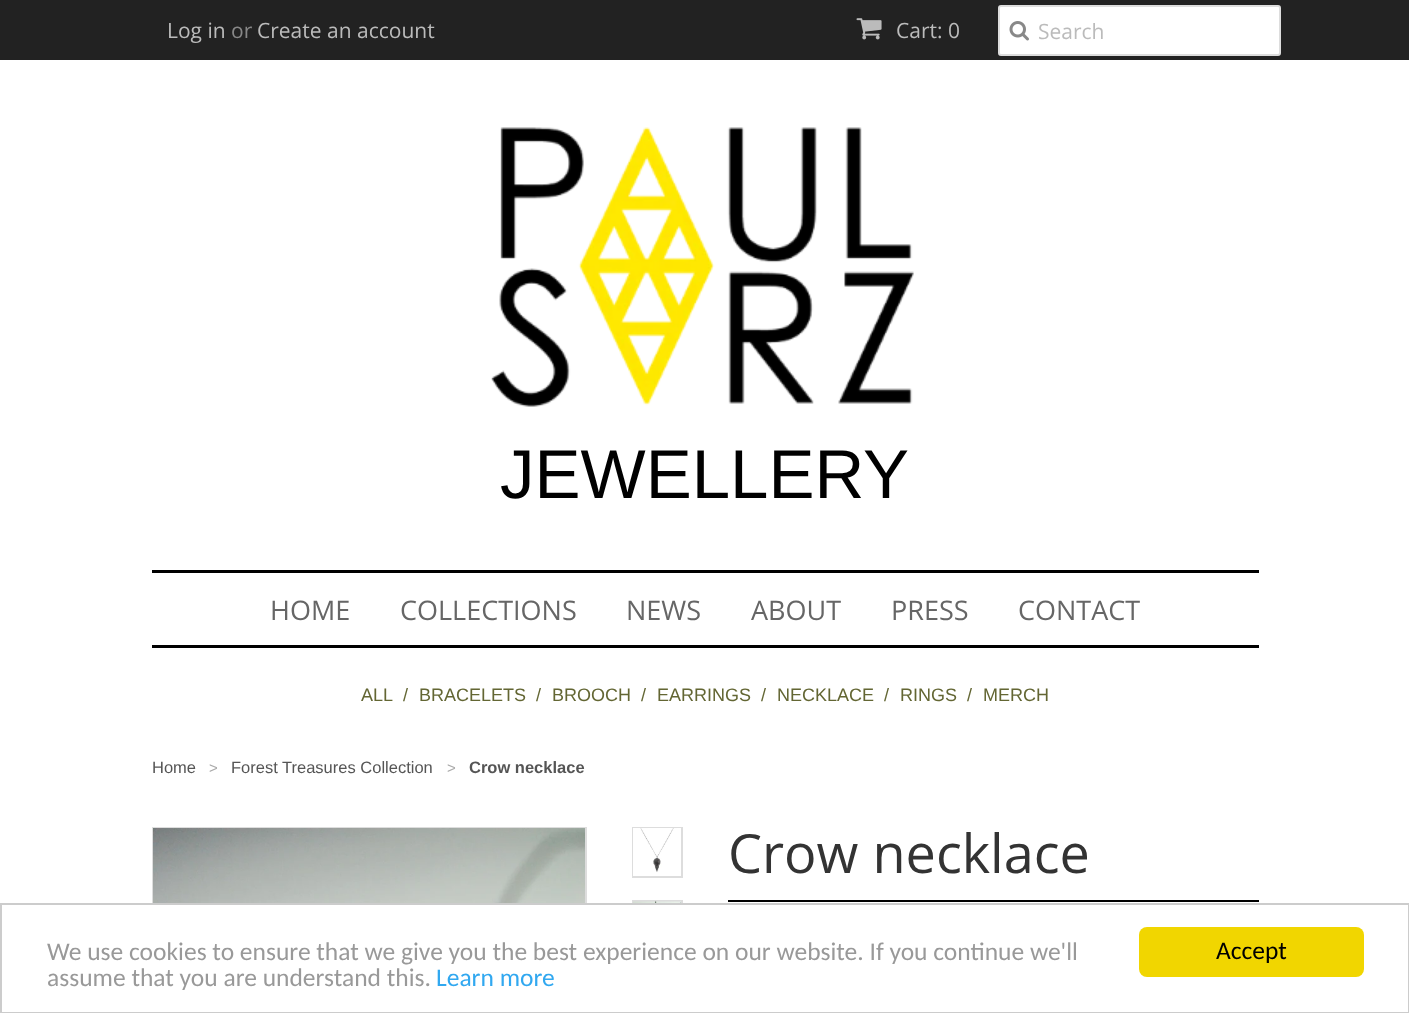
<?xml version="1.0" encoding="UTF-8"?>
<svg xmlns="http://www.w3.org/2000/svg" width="1409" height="1013">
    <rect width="100%" height="100%" fill="#FFFFFF"/>
    <rect x="0" y="0" width="1409" height="60" fill="#222222"/>
    <text x="167" y="38" font-family="Open Sans" font-size="21" fill="#BBBBBB">Log in</text>
    <text x="231" y="38" font-family="Open Sans" font-size="21" fill="#888888">or</text>
    <text x="257" y="38" font-family="Open Sans" font-size="21" fill="#BBBBBB">Create an account</text>
    <image x="856" y="18" width="26" height="22" href="img_01.png"/>
    <text x="896" y="38" font-family="Open Sans" font-size="21" fill="#BBBBBB">Cart: 0</text>
    <rect x="999" y="6" width="281" height="49" rx="2" fill="#FFFFFF" stroke="#DDDDDD" stroke-width="2"/>
    <image x="1009" y="21" width="20" height="20" href="img_02.png"/>
    <text x="1038" y="39" font-family="Open Sans" font-size="21" fill="#BBBBBB">Search</text>
    <image x="491" y="127" width="423" height="280" href="img_03.png"/>
    <text x="500" y="498" font-family="Liberation Sans" font-size="69" fill="#000000">JEWELLERY</text>
    <rect x="152" y="570" width="1107" height="3" fill="#000000"/>
    <rect x="152" y="645" width="1107" height="3" fill="#000000"/>
    <text x="270" y="620" font-family="Open Sans" font-size="27" fill="#666666">HOME</text>
    <text x="400" y="620" font-family="Open Sans" font-size="27" fill="#666666">COLLECTIONS</text>
    <text x="626" y="620" font-family="Open Sans" font-size="27" fill="#666666">NEWS</text>
    <text x="751" y="620" font-family="Open Sans" font-size="27" fill="#666666">ABOUT</text>
    <text x="891" y="620" font-family="Open Sans" font-size="27" fill="#666666">PRESS</text>
    <text x="1018" y="620" font-family="Open Sans" font-size="27" fill="#666666">CONTACT</text>
    <text x="361" y="701" font-family="Liberation Sans" font-size="18" fill="#636633">ALL</text>
    <text x="403" y="701" font-family="Liberation Sans" font-size="18" fill="#636633">/</text>
    <text x="419" y="701" font-family="Liberation Sans" font-size="18" fill="#636633">BRACELETS</text>
    <text x="536" y="701" font-family="Liberation Sans" font-size="18" fill="#636633">/</text>
    <text x="552" y="701" font-family="Liberation Sans" font-size="18" fill="#636633">BROOCH</text>
    <text x="641" y="701" font-family="Liberation Sans" font-size="18" fill="#636633">/</text>
    <text x="657" y="701" font-family="Liberation Sans" font-size="18" fill="#636633">EARRINGS</text>
    <text x="761" y="701" font-family="Liberation Sans" font-size="18" fill="#636633">/</text>
    <text x="777" y="701" font-family="Liberation Sans" font-size="18" fill="#636633">NECKLACE</text>
    <text x="884" y="701" font-family="Liberation Sans" font-size="18" fill="#636633">/</text>
    <text x="900" y="701" font-family="Liberation Sans" font-size="18" fill="#636633">RINGS</text>
    <text x="967" y="701" font-family="Liberation Sans" font-size="18" fill="#636633">/</text>
    <text x="983" y="701" font-family="Liberation Sans" font-size="18" fill="#636633">MERCH</text>
    <text x="152" y="773" font-family="Liberation Sans" font-size="16.5" fill="#555555">Home</text>
    <text x="209" y="773" font-family="Liberation Sans" font-size="15" fill="#AAAAAA">&gt;</text>
    <text x="231" y="773" font-family="Liberation Sans" font-size="16.5" fill="#555555">Forest Treasures Collection</text>
    <text x="447" y="773" font-family="Liberation Sans" font-size="15" fill="#AAAAAA">&gt;</text>
    <text x="469" y="773" font-family="Liberation Sans" font-size="16.5" font-weight="700" fill="#555555">Crow necklace</text>
    <rect x="153" y="828" width="433" height="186" fill="none" stroke="#DDDDDD" stroke-width="2"/>
    <image x="153" y="828" width="432" height="75" href="img_04.png"/>
    <rect x="633" y="828" width="49" height="49" fill="none" stroke="#DDDDDD" stroke-width="2"/>
    <image x="633" y="828" width="48" height="48" href="img_05.png"/>
    <rect x="633" y="901" width="49" height="49" fill="none" stroke="#DDDDDD" stroke-width="2"/>
    <image x="633" y="901" width="48" height="2" href="img_06.png"/>
    <text x="728" y="873" font-family="Open Sans" font-size="54" fill="#333333">Crow necklace</text>
    <rect x="728" y="900" width="531" height="2" fill="#000000"/>
    <rect x="152" y="905" width="531" height="107" fill="#FFFFFF"/>
    <rect x="1" y="904" width="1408" height="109" fill="none" stroke="#CCCCCC" stroke-width="2"/>
    <text font-family="Carlito" font-size="25.5" fill="#999999">
        <tspan x="47" y="960">We use cookies to ensure that we give you the best experience on our website. If you continue we'll</tspan>
        <tspan x="47" y="986">assume that you are understand this.</tspan>
    </text>
    <text x="436" y="986" font-family="Carlito" font-size="25.5" fill="#31A8F0">Learn more</text>
    <rect x="1139" y="927" width="225" height="50" rx="8" fill="#F1D600"/>
    <text x="1216" y="959" font-family="Carlito" font-size="25.5" fill="#000000">Accept</text>
</svg>
